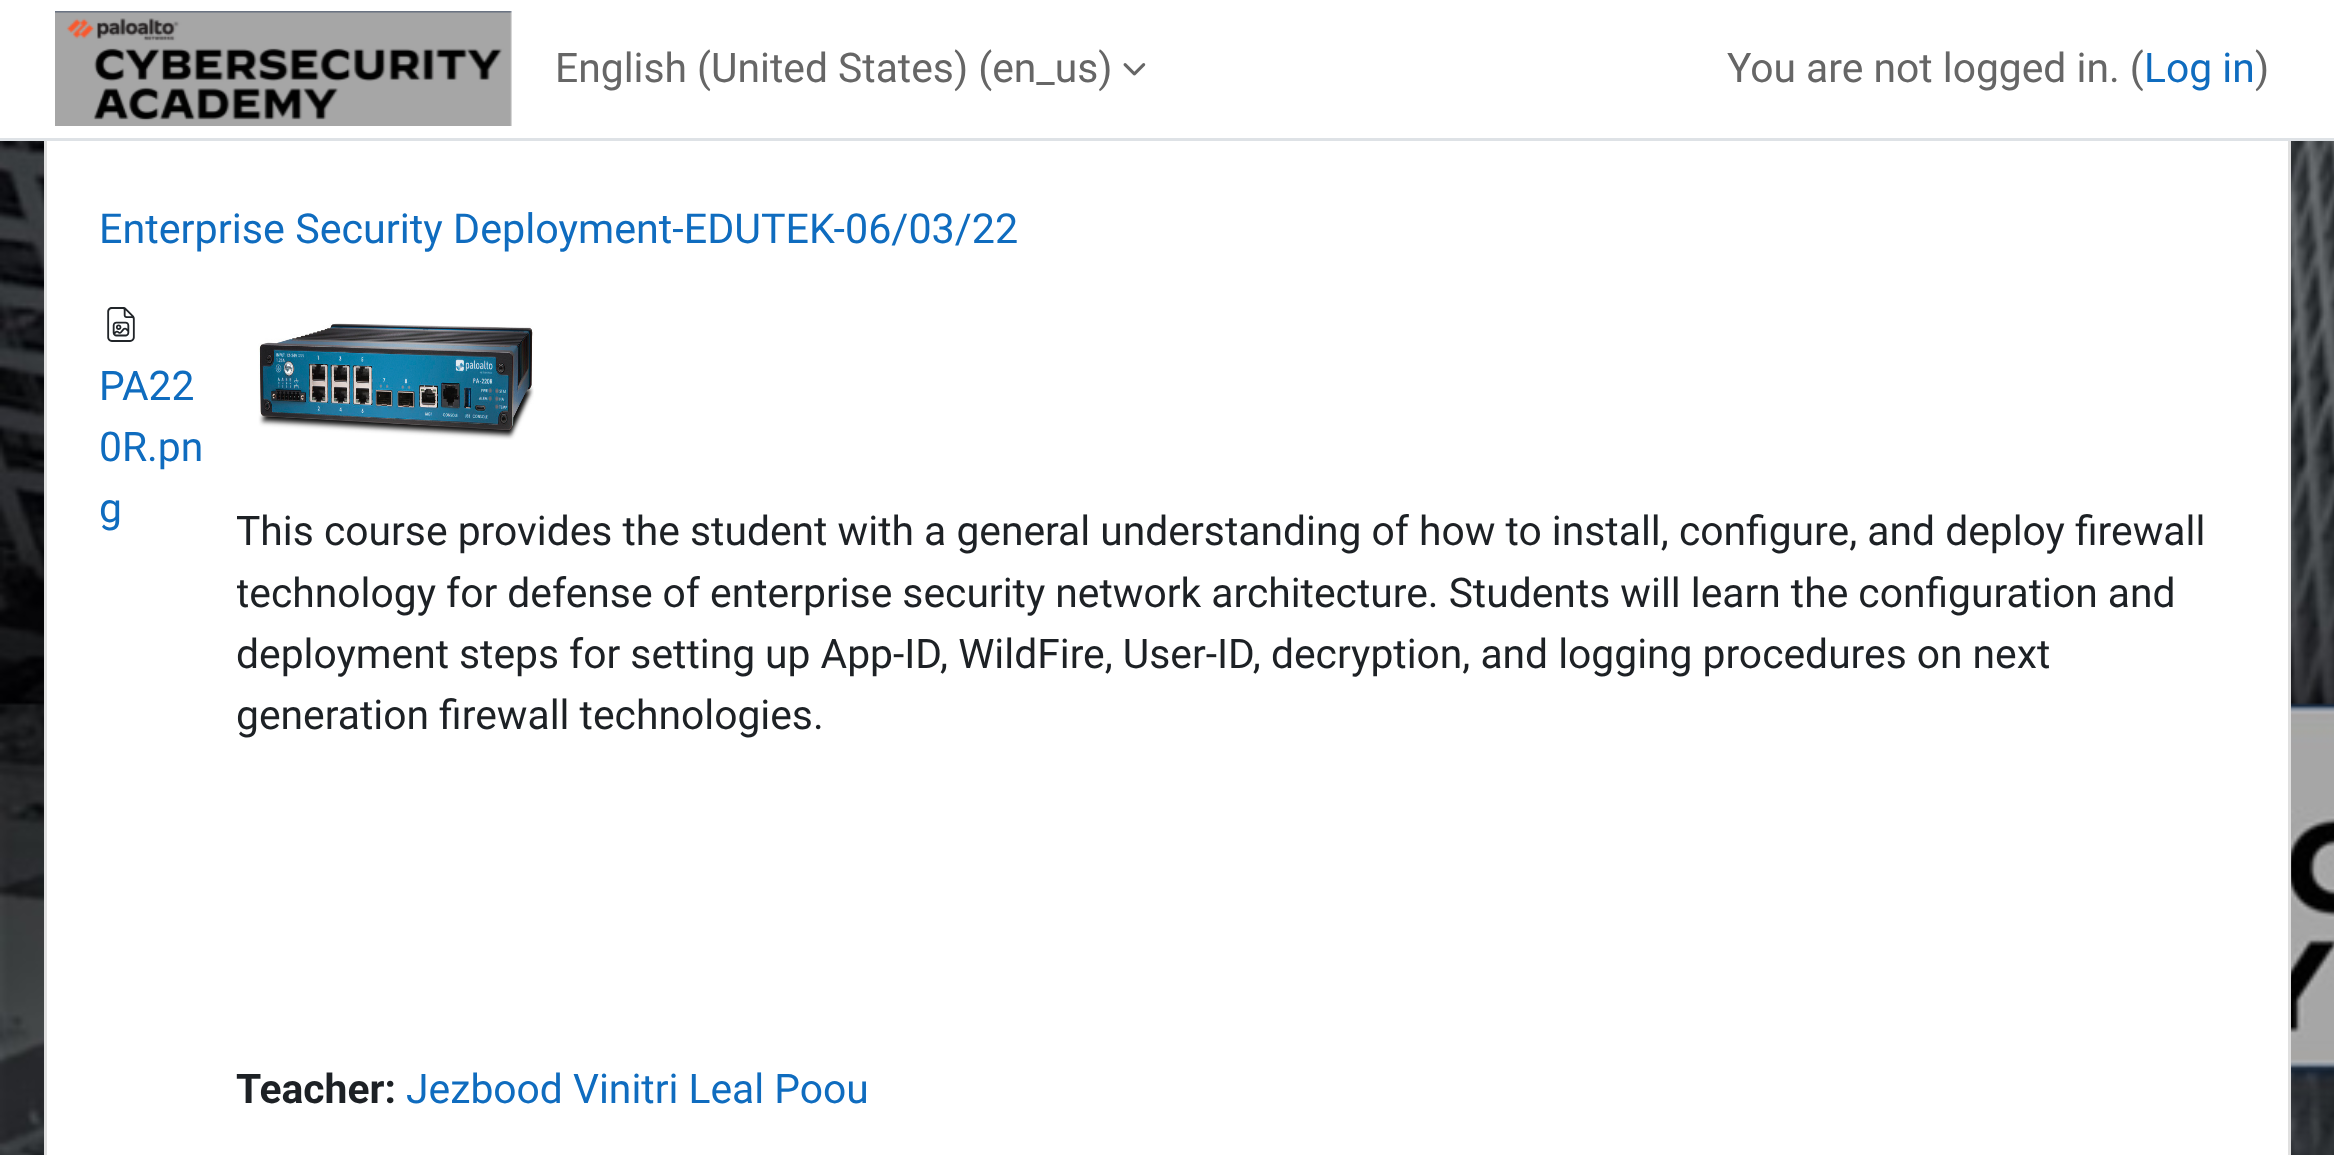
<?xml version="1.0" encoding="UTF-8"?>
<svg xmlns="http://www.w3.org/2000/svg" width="2334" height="1155">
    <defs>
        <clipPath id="clip1"><rect x="237" y="308" width="1999" height="710"/></clipPath>
    </defs>
    <rect width="100%" height="100%" fill="#FFFFFF"/>
    <image x="0" y="141" width="2334" height="1014" href="img_01.png"/>
    <rect x="44" y="141" width="2247" height="1014" fill="#FFFFFF"/>
    <rect x="45.5" y="103.5" width="2244" height="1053" fill="none" stroke="#000000" stroke-opacity="0.12" stroke-width="3"/>
    <rect x="44" y="102" width="2247" height="36" fill="#FFFFFF"/>
    <rect x="0" y="138" width="2334" height="3" fill="#DEE2E6"/>
    <image x="55" y="11" width="457" height="115" href="img_02.png"/>
    <text x="555" y="82" font-family="Roboto" font-size="40.8" fill="#666666">English (United States) (en_us)</text>
    <image x="1123" y="63" width="23" height="13" href="img_03.png"/>
    <text x="1727" y="82" font-family="Roboto" font-size="40.8" fill="#666666">You are not logged in. (</text>
    <text x="2144" y="82" font-family="Roboto" font-size="40.8" fill="#0F6CBF">Log in</text>
    <text x="2255" y="82" font-family="Roboto" font-size="40.8" fill="#666666">)</text>
    <text x="99" y="243" font-family="Roboto" font-size="41.25" fill="#0F6CBF">Enterprise Security Deployment-EDUTEK-06/03/22</text>
    <image x="107" y="307" width="28" height="35" href="img_04.png"/>
    <text font-family="Roboto" font-size="40.8" fill="#0F6CBF">
        <tspan x="99" y="400">PA22</tspan>
        <tspan x="99" y="461">0R.pn</tspan>
        <tspan x="99" y="522">g</tspan>
    </text>
    <image x="258" y="323" width="276" height="117" href="img_05.png"/>
    <g clip-path="url(#clip1)">
        <text font-family="Roboto" font-size="40.8" fill="#1D2125">
            <tspan x="236" y="545">This course provides the student with a general understanding of how to install, configure, and deploy firewall</tspan>
            <tspan x="236" y="607" word-spacing="-0.1">technology for defense of enterprise security network architecture. Students will learn the configuration and</tspan>
        </text>
    </g>
    <text font-family="Roboto" font-size="40.8" fill="#1D2125">
        <tspan x="236" y="668" word-spacing="-0.1">deployment steps for setting up App-ID, WildFire, User-ID, decryption, and logging procedures on next</tspan>
        <tspan x="236" y="729">generation firewall technologies.</tspan>
    </text>
    <text x="236" y="1103" font-family="Roboto" font-size="40.8" font-weight="700" fill="#1D2125">Teacher:</text>
    <text x="406" y="1103" font-family="Roboto" font-size="40.8" fill="#0F6CBF">Jezbood Vinitri Leal Poou</text>
</svg>
